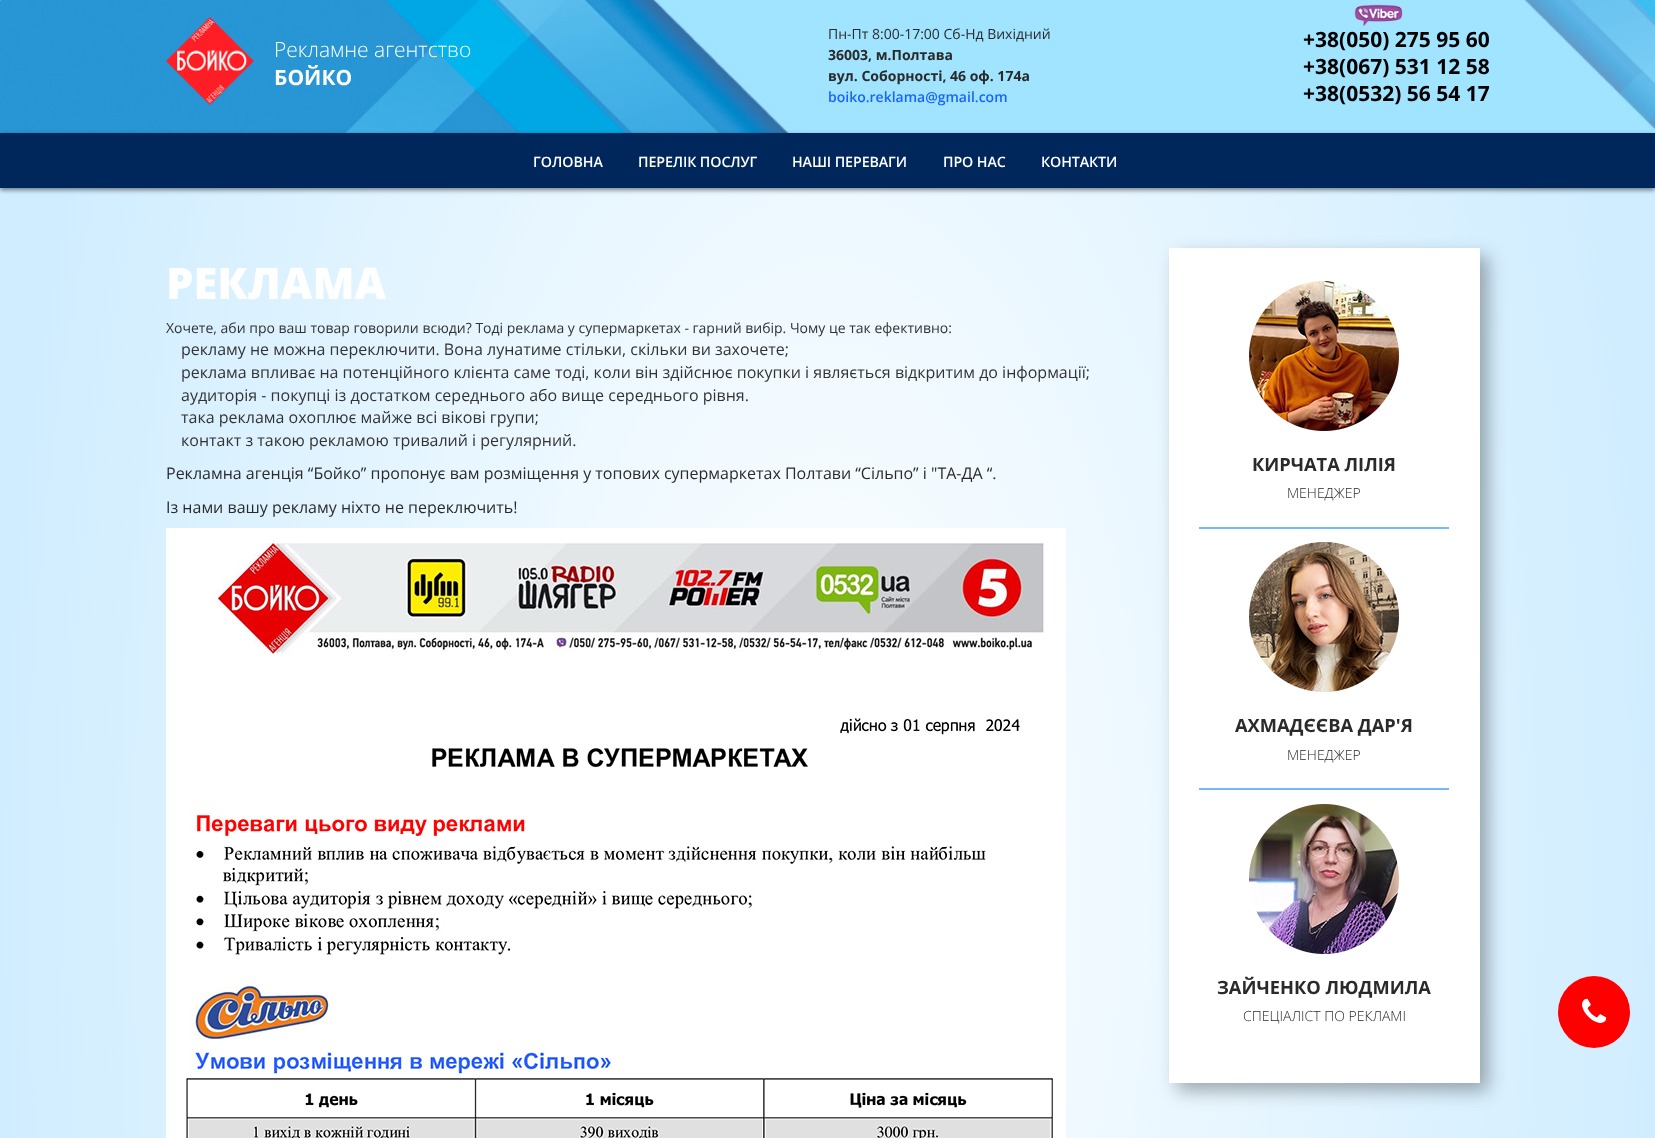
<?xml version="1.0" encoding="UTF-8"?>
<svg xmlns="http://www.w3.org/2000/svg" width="1655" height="1138">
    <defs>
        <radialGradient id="g1" gradientUnits="userSpaceOnUse" cx="0" cy="0" r="1" gradientTransform="matrix(828 0 0 1778 828 889)"><stop offset="0" stop-color="#FFFFFF"/><stop offset="1" stop-color="#D0EDFF"/></radialGradient>
        <filter id="blur1" x="-50%" y="-200%" width="200%" height="500%"><feGaussianBlur stdDeviation="2.5"/></filter>
        <filter id="blur2" x="-50%" y="-200%" width="200%" height="500%"><feGaussianBlur stdDeviation="9"/></filter>
    </defs>
    <rect width="100%" height="100%" fill="#FFFFFF"/>
    <rect x="0" y="0" width="1655" height="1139" rx="1" fill="url(#g1)"/>
    <image x="0" y="0" width="1655" height="133" href="img_01.png"/>
    <image x="166" y="17" width="88" height="88" href="img_02.png"/>
    <text x="274" y="57" font-family="Open Sans" font-size="21" font-weight="300" fill="#FFFFFF">Рекламне агентство</text>
    <text x="274" y="85" font-family="Open Sans" font-size="21" font-weight="700" fill="#FFFFFF">БОЙКО</text>
    <text x="828" y="39" font-family="Open Sans" font-size="14" fill="#2A2A2A">Пн-Пт 8:00-17:00 Сб-Нд Вихідний</text>
    <text font-family="Open Sans" font-size="14" font-weight="700" fill="#2A2A2A">
        <tspan x="828" y="60">36003, м.Полтава</tspan>
        <tspan x="828" y="81">вул. Соборності, 46 оф. 174а</tspan>
    </text>
    <text x="828" y="102" font-family="Open Sans" font-size="14" font-weight="600" fill="#1963FF">boiko.reklama@gmail.com</text>
    <image x="1354" y="4" width="49" height="23" href="img_03.png"/>
    <text font-family="Open Sans" font-size="21" font-weight="700" fill="#000000">
        <tspan x="1303" y="47">+38(050) 275 95 60</tspan>
        <tspan x="1303" y="74">+38(067) 531 12 58</tspan>
        <tspan x="1303" y="101">+38(0532) 56 54 17</tspan>
    </text>
    <rect x="0" y="135" width="1655" height="55" fill="#000000" fill-opacity="0.5" filter="url(#blur1)"/>
    <rect x="0" y="133" width="1655" height="55" fill="#00275B"/>
    <text x="533" y="167" font-family="Open Sans" font-size="14.25" font-weight="600" fill="#FFFFFF">ГОЛОВНА</text>
    <text x="638" y="167" font-family="Open Sans" font-size="14.25" font-weight="600" letter-spacing="-0.1" fill="#FFFFFF">ПЕРЕЛІК ПОСЛУГ</text>
    <text x="792" y="167" font-family="Open Sans" font-size="14.25" font-weight="600" letter-spacing="-0.1" fill="#FFFFFF">НАШІ ПЕРЕВАГИ</text>
    <text x="943" y="167" font-family="Open Sans" font-size="14.25" font-weight="600" letter-spacing="-0.1" fill="#FFFFFF">ПРО НАС</text>
    <text x="1041" y="167" font-family="Open Sans" font-size="14.25" font-weight="600" letter-spacing="-0.1" fill="#FFFFFF">КОНТАКТИ</text>
    <text x="166" y="299" font-family="Open Sans" font-size="43.5" font-weight="800" fill="#FFFFFF">РЕКЛАМА</text>
    <text x="166" y="333" font-family="Open Sans" font-size="14" fill="#333333">Хочете, аби про ваш товар говорили всюди? Тоді реклама у супермаркетах - гарний вибір. Чому це так ефективно:</text>
    <text font-family="Open Sans" font-size="16" fill="#333333">
        <tspan x="181" y="355">рекламу не можна переключити. Вона лунатиме стільки, скільки ви захочете;</tspan>
        <tspan x="181" y="378">реклама впливає на потенційного клієнта саме тоді, коли він здійснює покупки і являється відкритим до інформації;</tspan>
        <tspan x="181" y="401">аудиторія - покупці із достатком середнього або вище середнього рівня.</tspan>
        <tspan x="181" y="423">така реклама охоплює майже всі вікові групи;</tspan>
        <tspan x="181" y="446">контакт з такою рекламою тривалий і регулярний.</tspan>
    </text>
    <text x="166" y="479" font-family="Open Sans" font-size="16" fill="#2A2A2A">Рекламна агенція “Бойко” пропонує вам розміщення у топових супермаркетах Полтави “Сільпо” і "ТА-ДА “.</text>
    <text x="166" y="513" font-family="Open Sans" font-size="16" fill="#2A2A2A">Із нами вашу рекламу ніхто не переключить!</text>
    <image x="166" y="528" width="900" height="610" href="img_04.png"/>
    <rect x="1177" y="256" width="311" height="835" fill="#000000" fill-opacity="0.32" filter="url(#blur2)"/>
    <rect x="1169" y="248" width="311" height="835" fill="#FFFFFF"/>
    <image x="1249" y="281" width="150" height="150" href="img_05.png"/>
    <text x="1252" y="471" font-family="Open Sans" font-size="18.25" font-weight="700" fill="#2A2A2A">КИРЧАТА ЛІЛІЯ</text>
    <text x="1287" y="498" font-family="Open Sans" font-size="14" font-weight="300" fill="#2A2A2A">МЕНЕДЖЕР</text>
    <rect x="1199" y="527" width="250" height="2" fill="#75B8FC"/>
    <image x="1249" y="542" width="150" height="150" href="img_06.png"/>
    <text x="1235" y="732" font-family="Open Sans" font-size="18.25" font-weight="700" fill="#2A2A2A">АХМАДЄЄВА ДАР'Я</text>
    <text x="1287" y="760" font-family="Open Sans" font-size="14" font-weight="300" fill="#2A2A2A">МЕНЕДЖЕР</text>
    <rect x="1199" y="788" width="250" height="2" fill="#75B8FC"/>
    <image x="1249" y="804" width="150" height="150" href="img_07.png"/>
    <text x="1217" y="994" font-family="Open Sans" font-size="18.25" font-weight="700" fill="#2A2A2A">ЗАЙЧЕНКО ЛЮДМИЛА</text>
    <text x="1243" y="1021" font-family="Open Sans" font-size="14" font-weight="300" fill="#2A2A2A">СПЕЦІАЛІСТ ПО РЕКЛАМІ</text>
    <circle cx="1594" cy="1012" r="36" fill="#FF0000"/>
    <image x="1582" y="998" width="25" height="25" href="img_08.png"/>
</svg>
